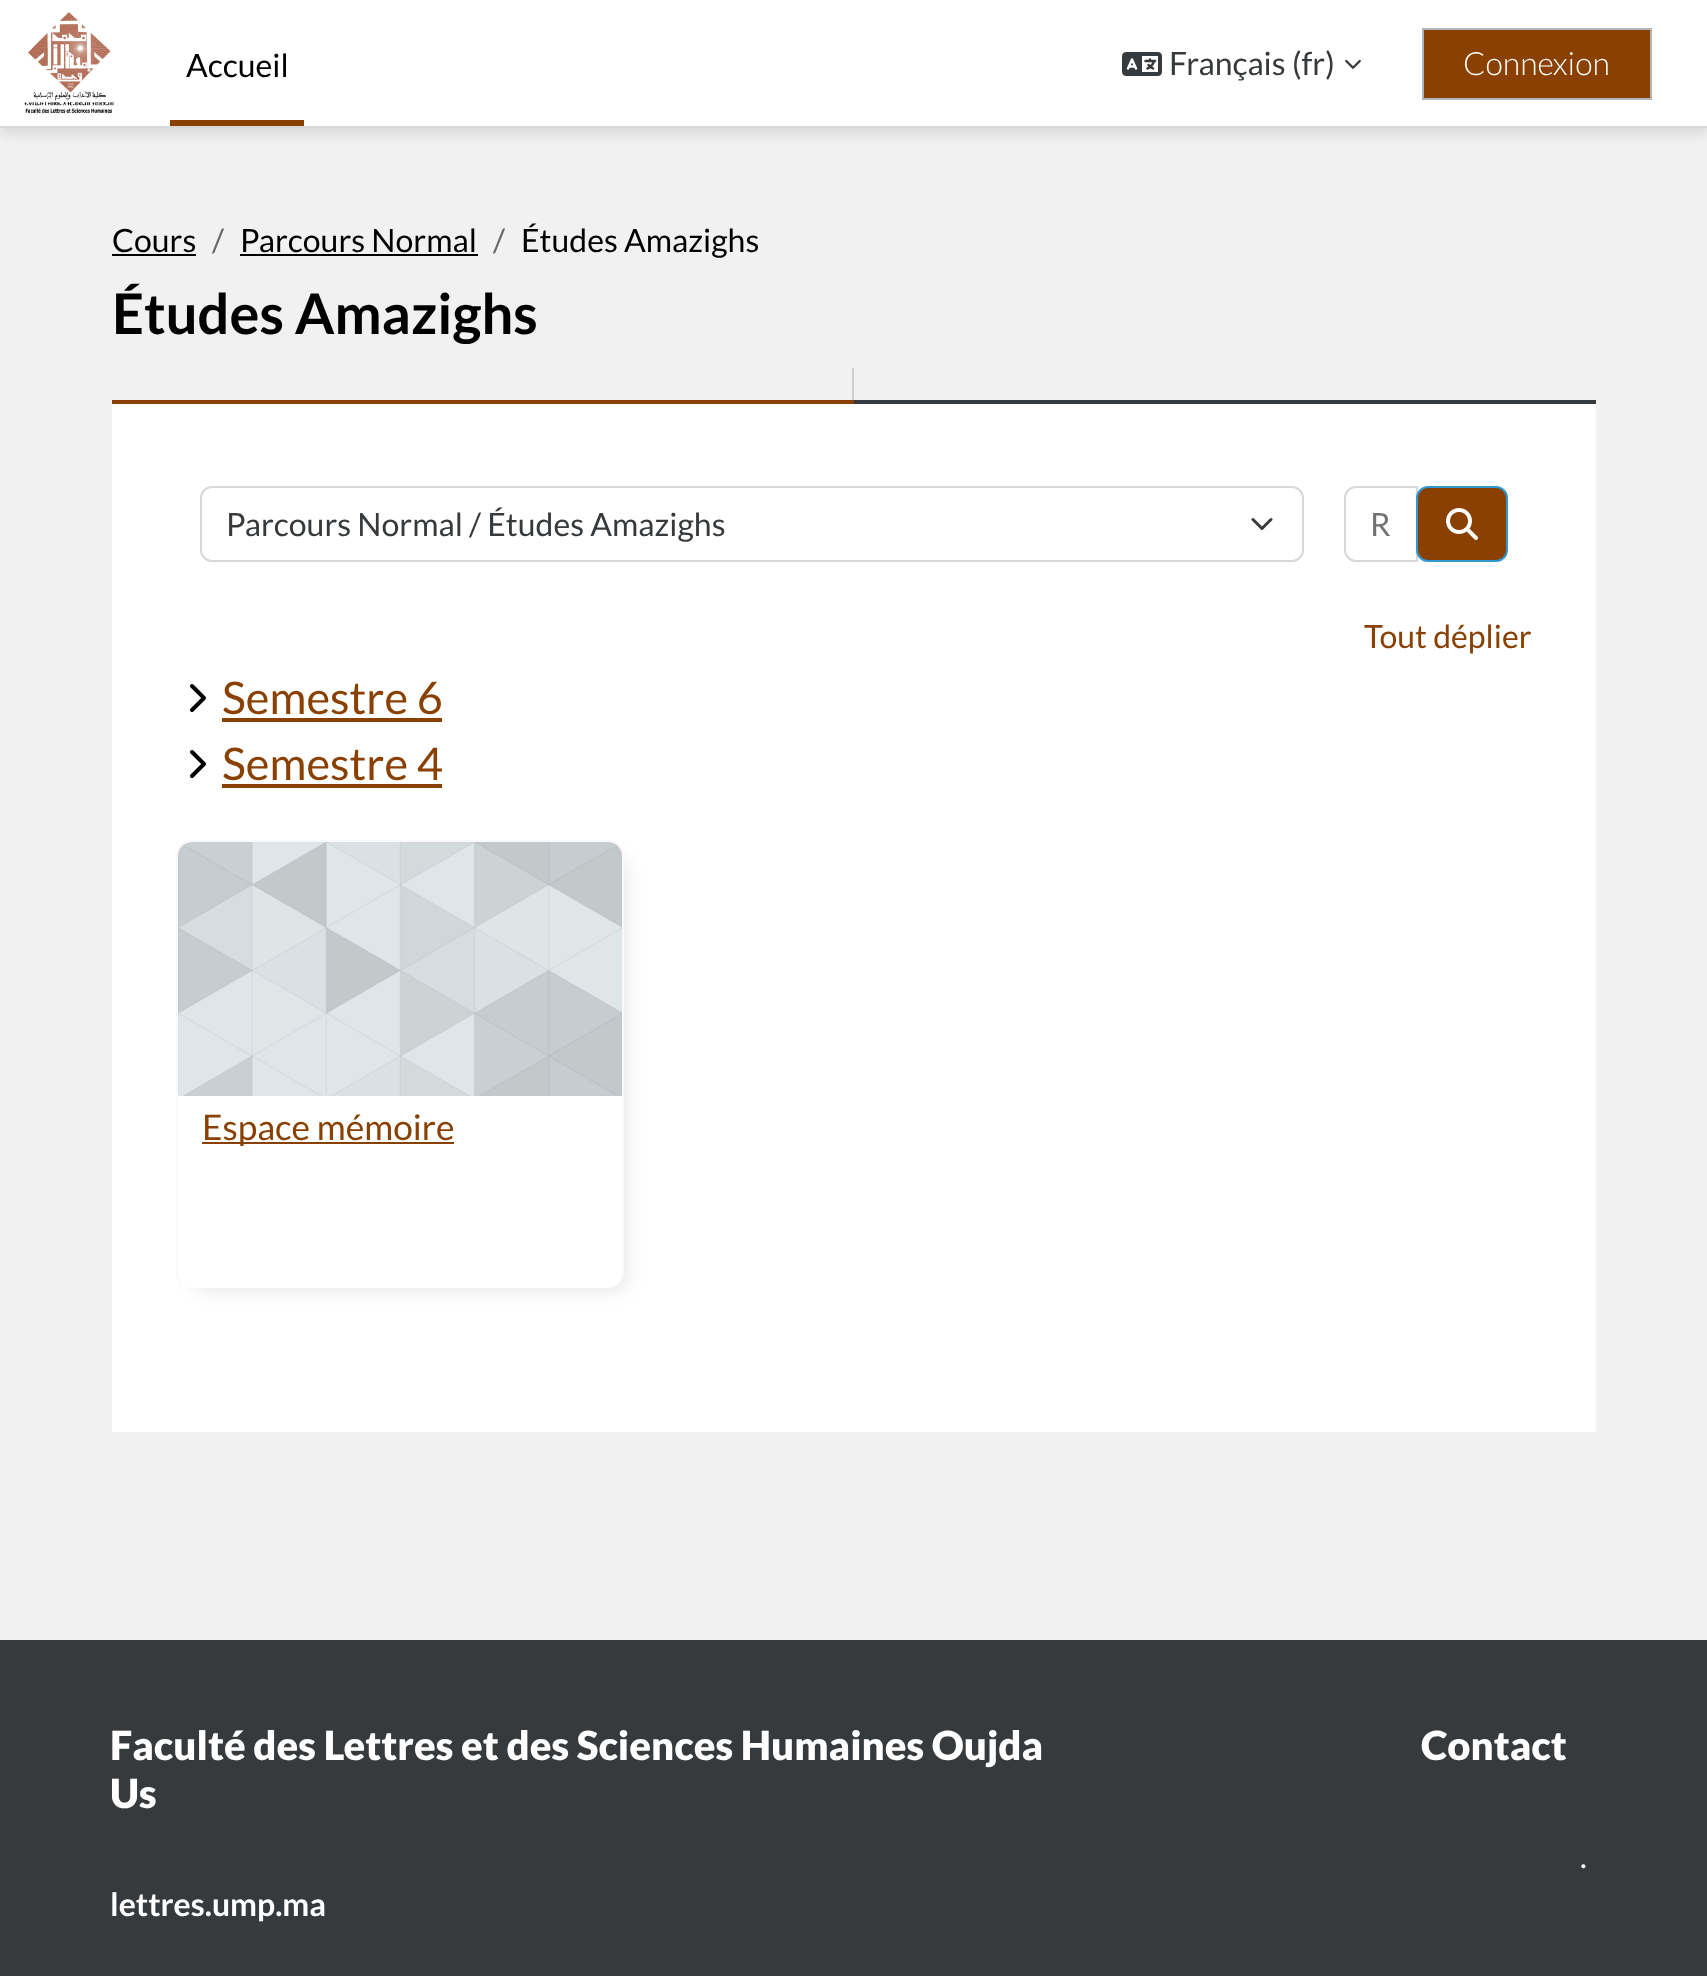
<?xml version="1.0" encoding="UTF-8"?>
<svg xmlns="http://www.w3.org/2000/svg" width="1707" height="1976">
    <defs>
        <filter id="blur1" x="-50%" y="-200%" width="200%" height="500%"><feGaussianBlur stdDeviation="6"/></filter>
        <filter id="blur2" x="-50%" y="-200%" width="200%" height="500%"><feGaussianBlur stdDeviation="9"/></filter>
    </defs>
    <rect width="100%" height="100%" fill="#F1F1F1"/>
    <rect x="0" y="6" width="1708" height="128" fill="#000000" fill-opacity="0.1" filter="url(#blur1)"/>
    <rect x="0" y="0" width="1707" height="126" fill="#FFFFFF"/>
    <rect x="0" y="126" width="1707" height="2" fill="#D8D8D8"/>
    <image x="24" y="12" width="90" height="102" href="img_01.png"/>
    <rect x="170" y="120" width="134" height="6" fill="#894000"/>
    <text x="186" y="77" font-family="Lato" font-size="32" fill="#000000">Accueil</text>
    <image x="1122" y="52" width="40" height="24" href="img_02.png"/>
    <text x="1169" y="75" font-family="Lato" font-size="32" fill="#373A3C">Français (fr)</text>
    <image x="1345" y="59" width="16" height="10" href="img_03.png"/>
    <rect x="1423" y="29" width="228" height="70" fill="#894000" stroke="#ADB5BD" stroke-width="2"/>
    <text x="1463" y="75" font-family="Lato" font-size="32" font-weight="300" fill="#FFFFFF">Connexion</text>
    <text x="112" y="252" font-family="Lato" font-size="32" fill="#000000">Cours</text>
    <rect x="112" y="254" width="84" height="2" fill="#000000"/>
    <text x="212" y="252" font-family="Lato" font-size="32" fill="#666869">/</text>
    <text x="240" y="252" font-family="Lato" font-size="32" fill="#000000">Parcours Normal</text>
    <rect x="240" y="254" width="238" height="2" fill="#000000"/>
    <text x="493" y="252" font-family="Lato" font-size="32" fill="#666869">/</text>
    <text x="521" y="252" font-family="Lato" font-size="32" fill="#000000">Études Amazighs</text>
    <text x="112" y="334" font-family="Lato" font-size="56" font-weight="700" fill="#000000">Études Amazighs</text>
    <rect x="852" y="368" width="2" height="32" fill="#CFCFCF"/>
    <rect x="112" y="400" width="742" height="4" fill="#894000"/>
    <rect x="854" y="400" width="742" height="4" fill="#373A3C"/>
    <rect x="112" y="404" width="1484" height="1028" fill="#FFFFFF"/>
    <path d="M 1253 519.5 L 1262 528.5 L 1271 519.5" fill="none" stroke="#373A3C" stroke-width="3" stroke-linecap="round" stroke-linejoin="round"/>
    <rect x="201" y="487" width="1102" height="74" rx="11" fill="none" stroke="#D8D8D8" stroke-width="2"/>
    <text x="226" y="536" font-family="Lato" font-size="32" fill="#373A3C">Parcours Normal / Études Amazighs</text>
    <path d="M 1356 487 H 1417 V 561 H 1356 C 1350 561 1345 556 1345 550 V 498 C 1345 492 1350 487 1356 487 Z" fill="none" stroke="#D8D8D8" stroke-width="2"/>
    <text x="1370" y="536" font-family="Lato" font-size="32" fill="#717171">R</text>
    <rect x="1417" y="487" width="90" height="74" rx="11" fill="#894000" stroke="#3097D1" stroke-width="2"/>
    <image x="1446" y="508" width="32" height="32" href="img_04.png"/>
    <text x="1364" y="648" font-family="Lato" font-size="32" fill="#894000">Tout déplier</text>
    <image x="190" y="684" width="16" height="28" href="img_05.png"/>
    <text x="222" y="714" font-family="Lato" font-size="45" fill="#894000">Semestre 6</text>
    <rect x="222" y="718" width="220" height="4" fill="#894000"/>
    <image x="190" y="750" width="16" height="28" href="img_06.png"/>
    <text x="222" y="780" font-family="Lato" font-size="45" fill="#894000">Semestre 4</text>
    <rect x="222" y="784" width="220" height="4" fill="#894000"/>
    <rect x="194" y="858" width="432" height="432" rx="8" fill="#000000" fill-opacity="0.1" filter="url(#blur2)"/>
    <rect x="176" y="840" width="448" height="448" rx="16" fill="#FFFFFF"/>
    <path d="M 192 840 H 608 C 617 840 624 847 624 856 V 1272 C 624 1281 617 1288 608 1288 H 192 C 183 1288 176 1281 176 1272 V 856 C 176 847 183 840 192 840 Z M 192 842 H 608 C 616 842 622 848 622 856 V 1272 C 622 1281 616 1288 608 1288 H 192 C 184 1288 178 1281 178 1272 V 856 C 178 848 184 842 192 842 Z" fill="#F8F9FA" fill-rule="evenodd"/>
    <image x="178" y="842" width="444" height="254" href="img_07.png"/>
    <rect x="202" y="1142" width="252" height="2" fill="#894000"/>
    <text x="202" y="1140" font-family="Lato" font-size="35.25" fill="#894000">Espace mémoire</text>
    <rect x="0" y="1640" width="1707" height="336" fill="#373A3C"/>
    <text x="110" y="1760" font-family="Lato" font-size="40" font-weight="900" fill="#FFFFFF">Faculté des Lettres et des Sciences Humaines Oujda</text>
    <text x="1421" y="1760" font-family="Lato" font-size="40" font-weight="900" fill="#FFFFFF">Contact</text>
    <text x="110" y="1808" font-family="Lato" font-size="40" font-weight="900" fill="#FFFFFF">Us</text>
    <text x="1580" y="1868" font-family="Lato" font-size="32" fill="#FFFFFF">.</text>
    <text x="110" y="1916" font-family="Lato" font-size="32" font-weight="700" fill="#FFFFFF">lettres.ump.ma</text>
</svg>
